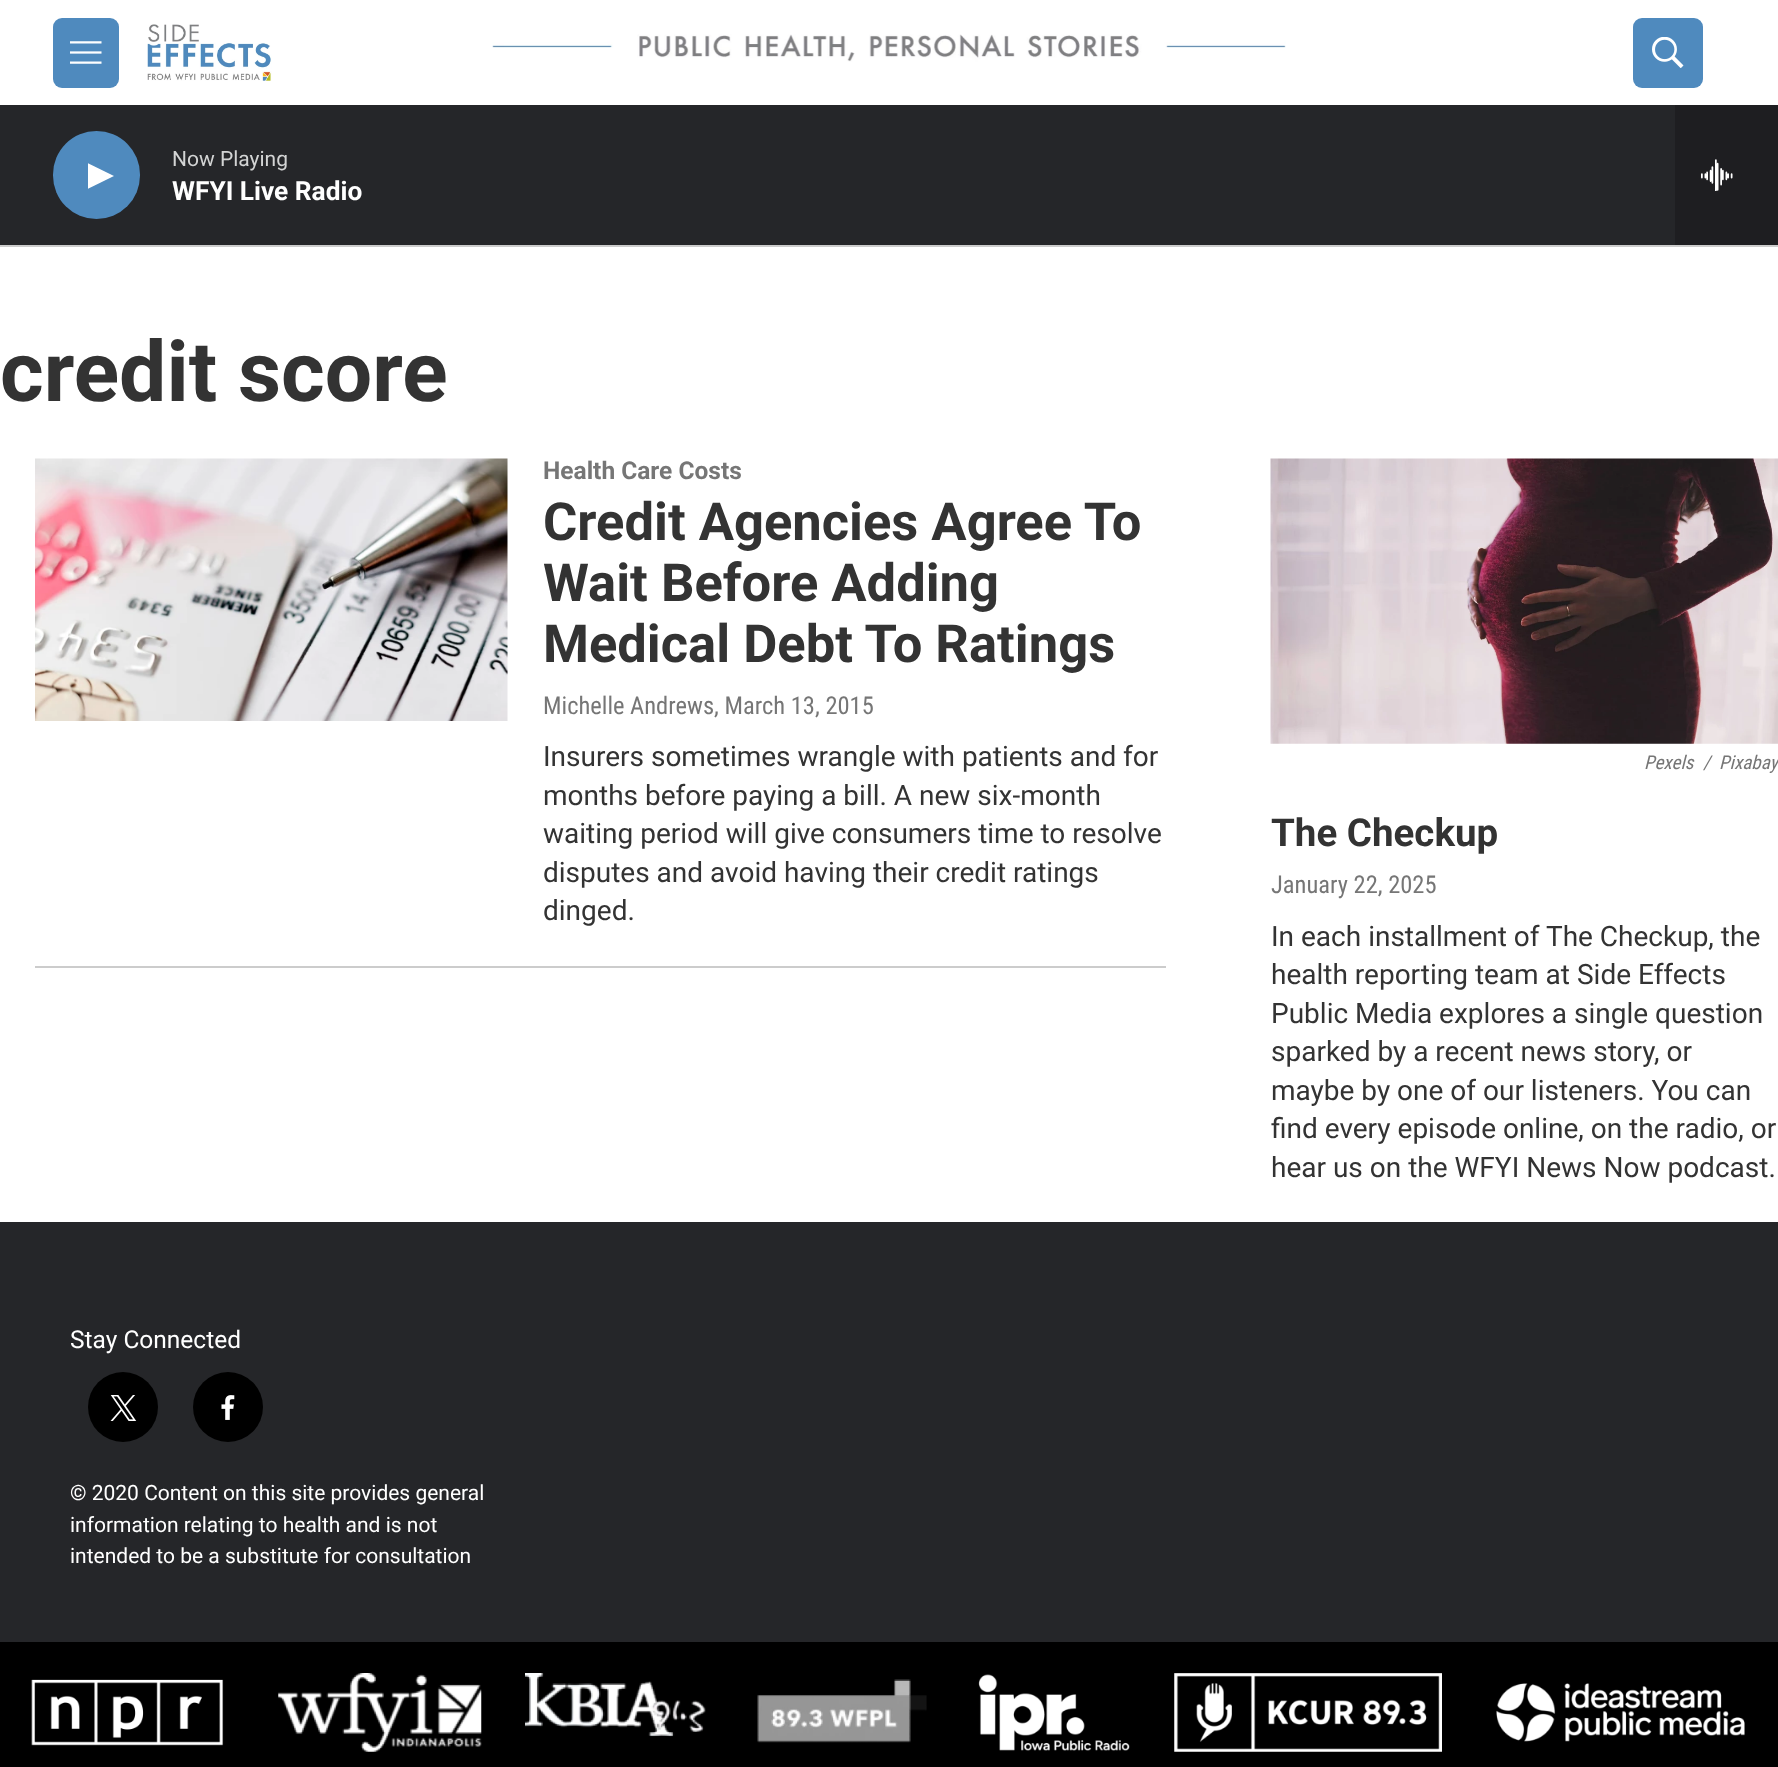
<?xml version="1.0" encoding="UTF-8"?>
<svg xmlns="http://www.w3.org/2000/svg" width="1778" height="1767">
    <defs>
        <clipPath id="clip1"><rect x="88" y="159" width="26" height="34"/></clipPath>
    </defs>
    <rect width="100%" height="100%" fill="#FFFFFF"/>
    <rect x="0" y="245" width="1778" height="2" fill="#CCCCCC"/>
    <rect x="53" y="18" width="66" height="70" rx="9" fill="#4F8ABE"/>
    <image x="70" y="41" width="32" height="23" href="img_01.png"/>
    <image x="147" y="24" width="125" height="57" href="img_02.png"/>
    <rect x="1633" y="18" width="70" height="70" rx="9" fill="#4F8ABE"/>
    <image x="1652" y="37" width="32" height="31" href="img_03.png"/>
    <image x="492" y="34" width="794" height="28" href="img_04.png"/>
    <rect x="0" y="105" width="1675" height="140" fill="#252629"/>
    <rect x="53" y="131" width="87" height="88" rx="43.5" fill="#4F8ABE"/>
    <g clip-path="url(#clip1)">
        <path d="M 87.5 163 L 114 176 L 87.5 189 Z" fill="#FFFFFF"/>
    </g>
    <text x="172" y="166" font-family="Roboto" font-size="21" fill="#D3D4D4">Now Playing</text>
    <text x="172" y="200" font-family="'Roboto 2'" font-size="26.25" font-weight="700" fill="#FFFFFF">WFYI Live Radio</text>
    <rect x="1675" y="105" width="103" height="140" fill="#1E1E21"/>
    <image x="1701" y="159" width="32" height="32" href="img_05.png"/>
    <text x="0" y="401" font-family="Roboto" font-size="84" font-weight="700" fill="#333333">credit score</text>
    <rect x="35" y="966" width="1131" height="2" fill="#CCCCCC"/>
    <image x="35" y="458" width="473" height="263" href="img_06.png"/>
    <text x="543" y="479" font-family="Roboto" font-size="24.5" font-weight="700" fill="#767676">Health Care Costs</text>
    <text font-family="Roboto" font-size="52.5" font-weight="700" fill="#333333">
        <tspan x="543" y="540">Credit Agencies Agree To</tspan>
        <tspan x="543" y="601">Wait Before Adding</tspan>
        <tspan x="543" y="662">Medical Debt To Ratings</tspan>
    </text>
    <text x="543" y="714" font-family="Roboto Condensed" font-size="24.5" fill="#767676">Michelle Andrews, March 13, 2015</text>
    <text font-family="Roboto" font-size="28" fill="#333333">
        <tspan x="543" y="766">Insurers sometimes wrangle with patients and for</tspan>
        <tspan x="543" y="805">months before paying a bill. A new six-month</tspan>
        <tspan x="543" y="843">waiting period will give consumers time to resolve</tspan>
        <tspan x="543" y="882">disputes and avoid having their credit ratings</tspan>
        <tspan x="543" y="920">dinged.</tspan>
    </text>
    <image x="1270" y="458" width="508" height="286" href="img_07.png"/>
    <text x="1644" y="769" font-family="Roboto Condensed" font-size="19" font-style="italic" fill="#767676">Pexels</text>
    <text x="1703" y="769" font-family="Roboto Condensed" font-size="19" font-style="italic" fill="#767676">/</text>
    <text x="1719" y="769" font-family="Roboto Condensed" font-size="19" font-style="italic" fill="#767676">Pixabay</text>
    <text x="1271" y="846" font-family="Roboto" font-size="38.5" font-weight="700" fill="#333333">The Checkup</text>
    <text x="1271" y="893" font-family="Roboto Condensed" font-size="24.5" fill="#767676">January 22, 2025</text>
    <text font-family="Roboto" font-size="28" fill="#333333">
        <tspan x="1271" y="946">In each installment of The Checkup, the</tspan>
        <tspan x="1271" y="984">health reporting team at Side Effects</tspan>
        <tspan x="1271" y="1023">Public Media explores a single question</tspan>
        <tspan x="1271" y="1061">sparked by a recent news story, or</tspan>
        <tspan x="1271" y="1100">maybe by one of our listeners. You can</tspan>
        <tspan x="1271" y="1138">find every episode online, on the radio, or</tspan>
        <tspan x="1271" y="1177">hear us on the WFYI News Now podcast.</tspan>
    </text>
    <rect x="0" y="1222" width="1778" height="420" fill="#252629"/>
    <text x="70" y="1348" font-family="Roboto" font-size="24.5" fill="#FFFFFF">Stay Connected</text>
    <circle cx="123" cy="1407" r="35" fill="#000000"/>
    <image x="110" y="1395" width="27" height="26" href="img_08.png"/>
    <circle cx="228" cy="1407" r="35" fill="#000000"/>
    <image x="221" y="1395" width="14" height="25" href="img_09.png"/>
    <text font-family="Roboto" font-size="21" fill="#FFFFFF">
        <tspan x="70" y="1500">© 2020 Content on this site provides general</tspan>
        <tspan x="70" y="1532">information relating to health and is not</tspan>
        <tspan x="70" y="1563">intended to be a substitute for consultation</tspan>
    </text>
    <rect x="0" y="1642" width="1778" height="125" fill="#000000"/>
    <image x="31" y="1679" width="193" height="67" href="img_10.png"/>
    <image x="278" y="1673" width="204" height="79" href="img_11.png"/>
    <image x="525" y="1673" width="181" height="64" href="img_12.png"/>
    <image x="757" y="1679" width="170" height="64" href="img_13.png"/>
    <image x="978" y="1674" width="152" height="77" href="img_14.png"/>
    <image x="1174" y="1673" width="268" height="79" href="img_15.png"/>
    <image x="1496" y="1683" width="249" height="59" href="img_16.png"/>
</svg>
